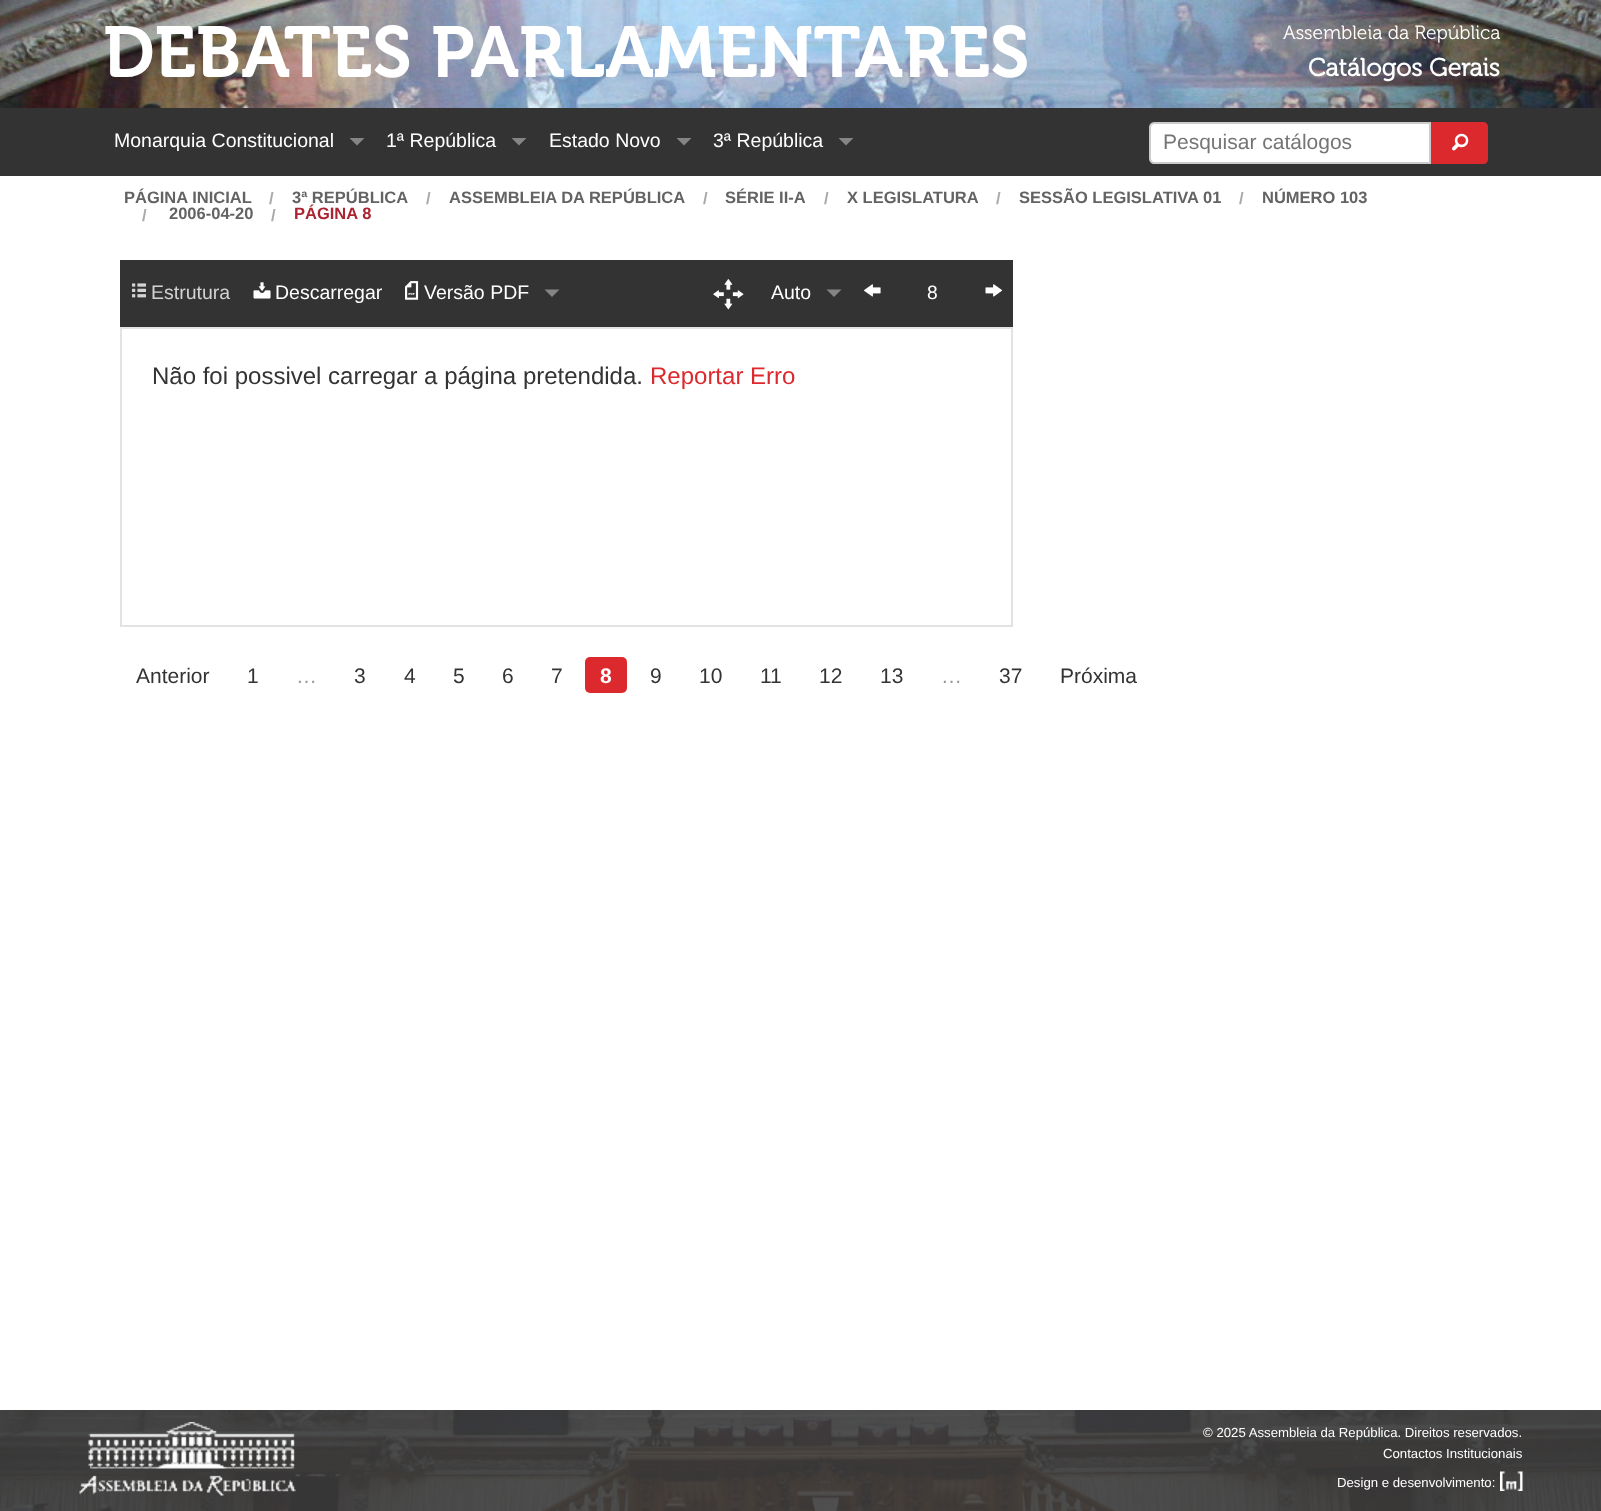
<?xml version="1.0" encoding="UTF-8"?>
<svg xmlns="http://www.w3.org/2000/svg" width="1601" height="1511">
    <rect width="100%" height="100%" fill="#FFFFFF"/>
    <image x="0" y="0" width="1601" height="108" href="img_01.png"/>
    <text x="103" y="77" font-family="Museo" font-size="72" font-weight="600" fill="#FFFFFF">DEBATES PARLAMENTARES</text>
    <text x="1283" y="39" font-family="Museo" font-size="19.25" font-weight="300" fill="#FFFFFF">Assembleia da República</text>
    <text x="1308" y="76" font-family="Museo" font-size="25" font-weight="700" fill="#FFFFFF">Catálogos Gerais</text>
    <rect x="0" y="108" width="1601" height="68" fill="#333333"/>
    <text x="114" y="147" font-family="Liberation Sans" font-size="19.5" fill="#FFFFFF">Monarquia Constitucional</text>
    <path d="M 349.5 138 H 364.5 L 357 145.5 Z" fill="#858585"/>
    <text x="386" y="147" font-family="Liberation Sans" font-size="19.5" fill="#FFFFFF">1ª República</text>
    <path d="M 511.5 138 H 526.5 L 519 145.5 Z" fill="#858585"/>
    <text x="549" y="147" font-family="Liberation Sans" font-size="19.5" fill="#FFFFFF">Estado Novo</text>
    <path d="M 676.5 138 H 691.5 L 684 145.5 Z" fill="#858585"/>
    <text x="713" y="147" font-family="Liberation Sans" font-size="19.5" fill="#FFFFFF">3ª República</text>
    <path d="M 838.5 138 H 853.5 L 846 145.5 Z" fill="#858585"/>
    <path d="M 1154 123 H 1430 V 163 H 1154 C 1152 163 1150 161 1150 159 V 127 C 1150 125 1152 123 1154 123 Z" fill="#FFFFFF" stroke="#CCCCCC" stroke-width="2"/>
    <text x="1163" y="149" font-family="Liberation Sans" font-size="21" fill="#757575">Pesquisar catálogos</text>
    <path d="M 1431 122 H 1483 C 1486 122 1488 124 1488 127 V 159 C 1488 162 1486 164 1483 164 H 1431 Z" fill="#DC292E"/>
    <image x="1452" y="133" width="17" height="18" href="img_02.png"/>
    <text x="124" y="203" font-family="Liberation Sans" font-size="16.5" font-weight="700" fill="#636363">PÁGINA INICIAL</text>
    <text x="269" y="204" font-family="Liberation Sans" font-size="16.5" font-weight="700" fill="#AAAAAA">/</text>
    <text x="292" y="203" font-family="Liberation Sans" font-size="16.5" font-weight="700" fill="#636363">3ª REPÚBLICA</text>
    <text x="426" y="204" font-family="Liberation Sans" font-size="16.5" font-weight="700" fill="#AAAAAA">/</text>
    <text x="449" y="203" font-family="Liberation Sans" font-size="16.5" font-weight="700" fill="#636363">ASSEMBLEIA DA REPÚBLICA</text>
    <text x="703" y="204" font-family="Liberation Sans" font-size="16.5" font-weight="700" fill="#AAAAAA">/</text>
    <text x="725" y="203" font-family="Liberation Sans" font-size="16.5" font-weight="700" fill="#636363">SÉRIE II-A</text>
    <text x="824" y="204" font-family="Liberation Sans" font-size="16.5" font-weight="700" fill="#AAAAAA">/</text>
    <text x="847" y="203" font-family="Liberation Sans" font-size="16.5" font-weight="700" fill="#636363">X LEGISLATURA</text>
    <text x="996" y="204" font-family="Liberation Sans" font-size="16.5" font-weight="700" fill="#AAAAAA">/</text>
    <text x="1019" y="203" font-family="Liberation Sans" font-size="16.5" font-weight="700" fill="#636363">SESSÃO LEGISLATIVA 01</text>
    <text x="1239" y="204" font-family="Liberation Sans" font-size="16.5" font-weight="700" fill="#AAAAAA">/</text>
    <text x="1262" y="203" font-family="Liberation Sans" font-size="16.5" font-weight="700" fill="#636363">NÚMERO 103</text>
    <text x="142" y="221" font-family="Liberation Sans" font-size="16.5" font-weight="700" fill="#AAAAAA">/</text>
    <text x="169" y="219" font-family="Liberation Sans" font-size="16.5" font-weight="700" fill="#636363">2006-04-20</text>
    <text x="271" y="221" font-family="Liberation Sans" font-size="16.5" font-weight="700" fill="#AAAAAA">/</text>
    <text x="294" y="219" font-family="Liberation Sans" font-size="16.5" font-weight="700" fill="#AA2531">PÁGINA 8</text>
    <rect x="120" y="260" width="893" height="67" fill="#333333"/>
    <image x="132" y="283" width="14" height="15" href="img_03.png"/>
    <text x="151" y="299" font-family="Liberation Sans" font-size="19.5" fill="#D3D3D3">Estrutura</text>
    <image x="253" y="282" width="18" height="17" href="img_04.png"/>
    <text x="275" y="299" font-family="Liberation Sans" font-size="19.5" fill="#FFFFFF">Descarregar</text>
    <image x="405" y="281" width="14" height="19" href="img_05.png"/>
    <text x="424" y="299" font-family="Liberation Sans" font-size="19.5" fill="#FFFFFF">Versão PDF</text>
    <path d="M 544.5 289.5 H 559.5 L 552 297 Z" fill="#858585"/>
    <image x="713" y="279" width="31" height="31" href="img_06.png"/>
    <text x="771" y="299" font-family="Liberation Sans" font-size="19.5" fill="#FFFFFF">Auto</text>
    <path d="M 826.5 289.5 H 841.5 L 834 297 Z" fill="#858585"/>
    <image x="864" y="284" width="17" height="13" href="img_07.png"/>
    <text x="927" y="299" font-family="Liberation Sans" font-size="19.25" fill="#FFFFFF">8</text>
    <image x="985" y="284" width="17" height="13" href="img_08.png"/>
    <rect x="121" y="328" width="891" height="298" fill="none" stroke="#E3E3E3" stroke-width="2"/>
    <text x="152" y="384" font-family="Liberation Sans" font-size="24" fill="#333333">Não foi possivel carregar a página pretendida.</text>
    <text x="650" y="384" font-family="Liberation Sans" font-size="24" fill="#DC292E">Reportar Erro</text>
    <text x="136" y="683" font-family="Liberation Sans" font-size="21" fill="#333333">Anterior</text>
    <text x="247" y="683" font-family="Liberation Sans" font-size="21" fill="#333333">1</text>
    <text x="296" y="683" font-family="Liberation Sans" font-size="21" fill="#999999">…</text>
    <text x="354" y="683" font-family="Liberation Sans" font-size="21" fill="#333333">3</text>
    <text x="404" y="683" font-family="Liberation Sans" font-size="21" fill="#333333">4</text>
    <text x="453" y="683" font-family="Liberation Sans" font-size="21" fill="#333333">5</text>
    <text x="502" y="683" font-family="Liberation Sans" font-size="21" fill="#333333">6</text>
    <text x="551" y="683" font-family="Liberation Sans" font-size="21" fill="#333333">7</text>
    <rect x="585" y="657" width="42" height="36" rx="5" fill="#DC292E"/>
    <text x="600" y="683" font-family="Liberation Sans" font-size="21" font-weight="700" fill="#FFFFFF">8</text>
    <text x="650" y="683" font-family="Liberation Sans" font-size="21" fill="#333333">9</text>
    <text x="699" y="683" font-family="Liberation Sans" font-size="21" fill="#333333">10</text>
    <text x="760" y="683" font-family="Liberation Sans" font-size="21" fill="#333333">11</text>
    <text x="819" y="683" font-family="Liberation Sans" font-size="21" fill="#333333">12</text>
    <text x="880" y="683" font-family="Liberation Sans" font-size="21" fill="#333333">13</text>
    <text x="941" y="683" font-family="Liberation Sans" font-size="21" fill="#999999">…</text>
    <text x="999" y="683" font-family="Liberation Sans" font-size="21" fill="#333333">37</text>
    <text x="1060" y="683" font-family="Liberation Sans" font-size="21" fill="#333333">Próxima</text>
    <image x="0" y="1410" width="1601" height="101" href="img_09.png"/>
    <image x="79" y="1422" width="217" height="74" href="img_10.png"/>
    <text x="1203" y="1437" font-family="Liberation Sans" font-size="13.2" fill="#FFFFFF">© 2025 Assembleia da República. Direitos reservados.</text>
    <text x="1383" y="1458" font-family="Liberation Sans" font-size="13.2" fill="#FFFFFF">Contactos Institucionais</text>
    <text x="1337" y="1487" font-family="Liberation Sans" font-size="13.2" fill="#FFFFFF">Design e desenvolvimento:</text>
    <image x="1500" y="1471" width="23" height="20" href="img_11.png"/>
</svg>
